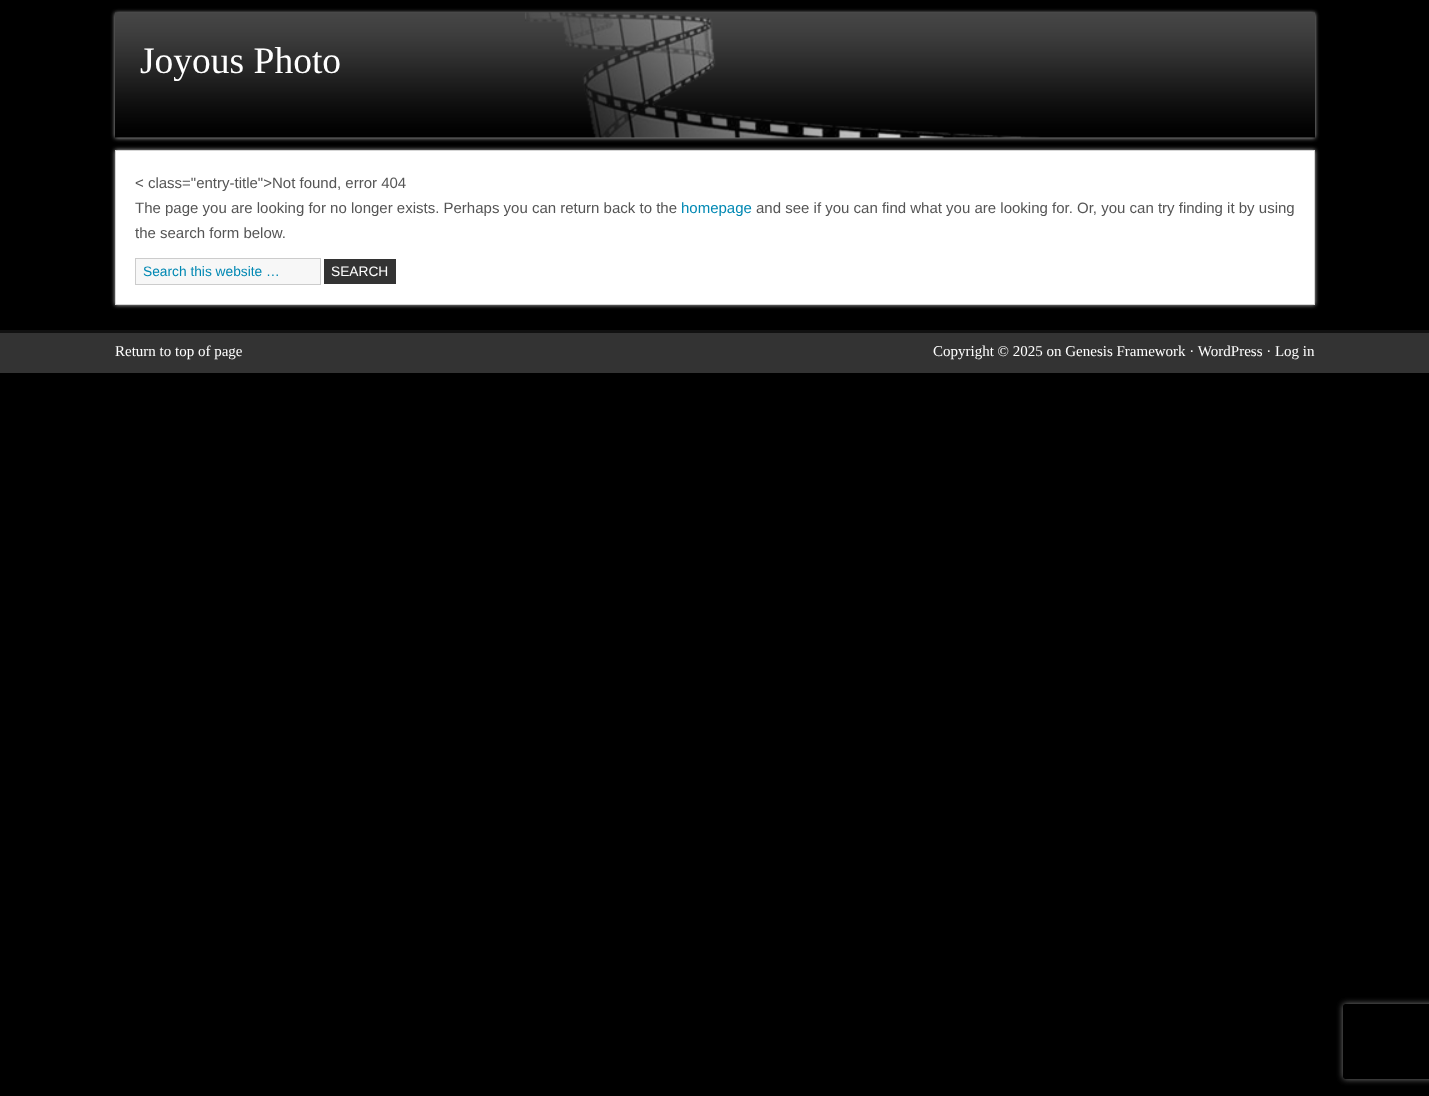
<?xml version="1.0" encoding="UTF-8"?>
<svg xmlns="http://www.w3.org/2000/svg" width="1429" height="1096">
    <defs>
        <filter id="blur1" x="-50%" y="-200%" width="200%" height="500%"><feGaussianBlur stdDeviation="2"/></filter>
        <clipPath id="clip1"><path d="M 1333 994 H 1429 V 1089 H 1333 Z M 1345.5 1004 H 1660.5 C 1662 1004 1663 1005 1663 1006.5 V 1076.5 C 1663 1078 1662 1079 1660.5 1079 H 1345.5 C 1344 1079 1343 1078 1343 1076.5 V 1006.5 C 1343 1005 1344 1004 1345.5 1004 Z" clip-rule="evenodd"/></clipPath>
        <filter id="blur2" x="-50%" y="-200%" width="200%" height="500%"><feGaussianBlur stdDeviation="3"/></filter>
    </defs>
    <rect width="100%" height="100%" fill="#000000"/>
    <rect x="115" y="13" width="1200" height="125" fill="#BBBBBB" filter="url(#blur1)"/>
    <image x="115" y="12" width="1200" height="126" href="img_01.png"/>
    <text x="140" y="73" font-family="Liberation Serif" font-size="37.5" fill="#FFFFFF">Joyous Photo</text>
    <rect x="115" y="150" width="1200" height="155" fill="#BBBBBB" filter="url(#blur1)"/>
    <rect x="115.5" y="150.5" width="1199" height="154" fill="#FFFFFF" stroke="#D5D5D5"/>
    <text font-family="Liberation Sans" font-size="15" fill="#555555">
        <tspan x="135" y="188">&lt; class="entry-title"&gt;Not found, error 404</tspan>
        <tspan x="135" y="213">The page you are looking for no longer exists. Perhaps you can return back to the</tspan>
    </text>
    <text x="681" y="213" font-family="Liberation Sans" font-size="15" fill="#0088B3">homepage</text>
    <text x="756" y="213" font-family="Liberation Sans" font-size="15" fill="#555555">and see if you can find what you are looking for. Or, you can try finding it by using</text>
    <text x="135" y="238" font-family="Liberation Sans" font-size="15" fill="#555555">the search form below.</text>
    <rect x="135.5" y="258.5" width="185" height="26" fill="#F7F7F7" stroke="#CCCCCC"/>
    <text x="143" y="276" font-family="Liberation Sans" font-size="13.75" fill="#0088B3">Search this website …</text>
    <rect x="324" y="259" width="72" height="25" fill="#333333"/>
    <text x="331" y="276" font-family="Liberation Sans" font-size="13.75" fill="#FFFFFF">SEARCH</text>
    <rect x="0" y="333" width="1429" height="40" fill="#333333"/>
    <rect x="0" y="330" width="1429" height="3" fill="#111111"/>
    <text x="115" y="356" font-family="Liberation Serif" font-size="15" fill="#FFFFFF">Return to top of page</text>
    <text x="933" y="356" font-family="Liberation Serif" font-size="15" fill="#FFFFFF">Copyright © 2025 on Genesis Framework · WordPress · Log in</text>
    <g clip-path="url(#clip1)">
        <rect x="1343" y="1004" width="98" height="75" rx="2.5" fill="#808080" filter="url(#blur2)"/>
    </g>
</svg>
